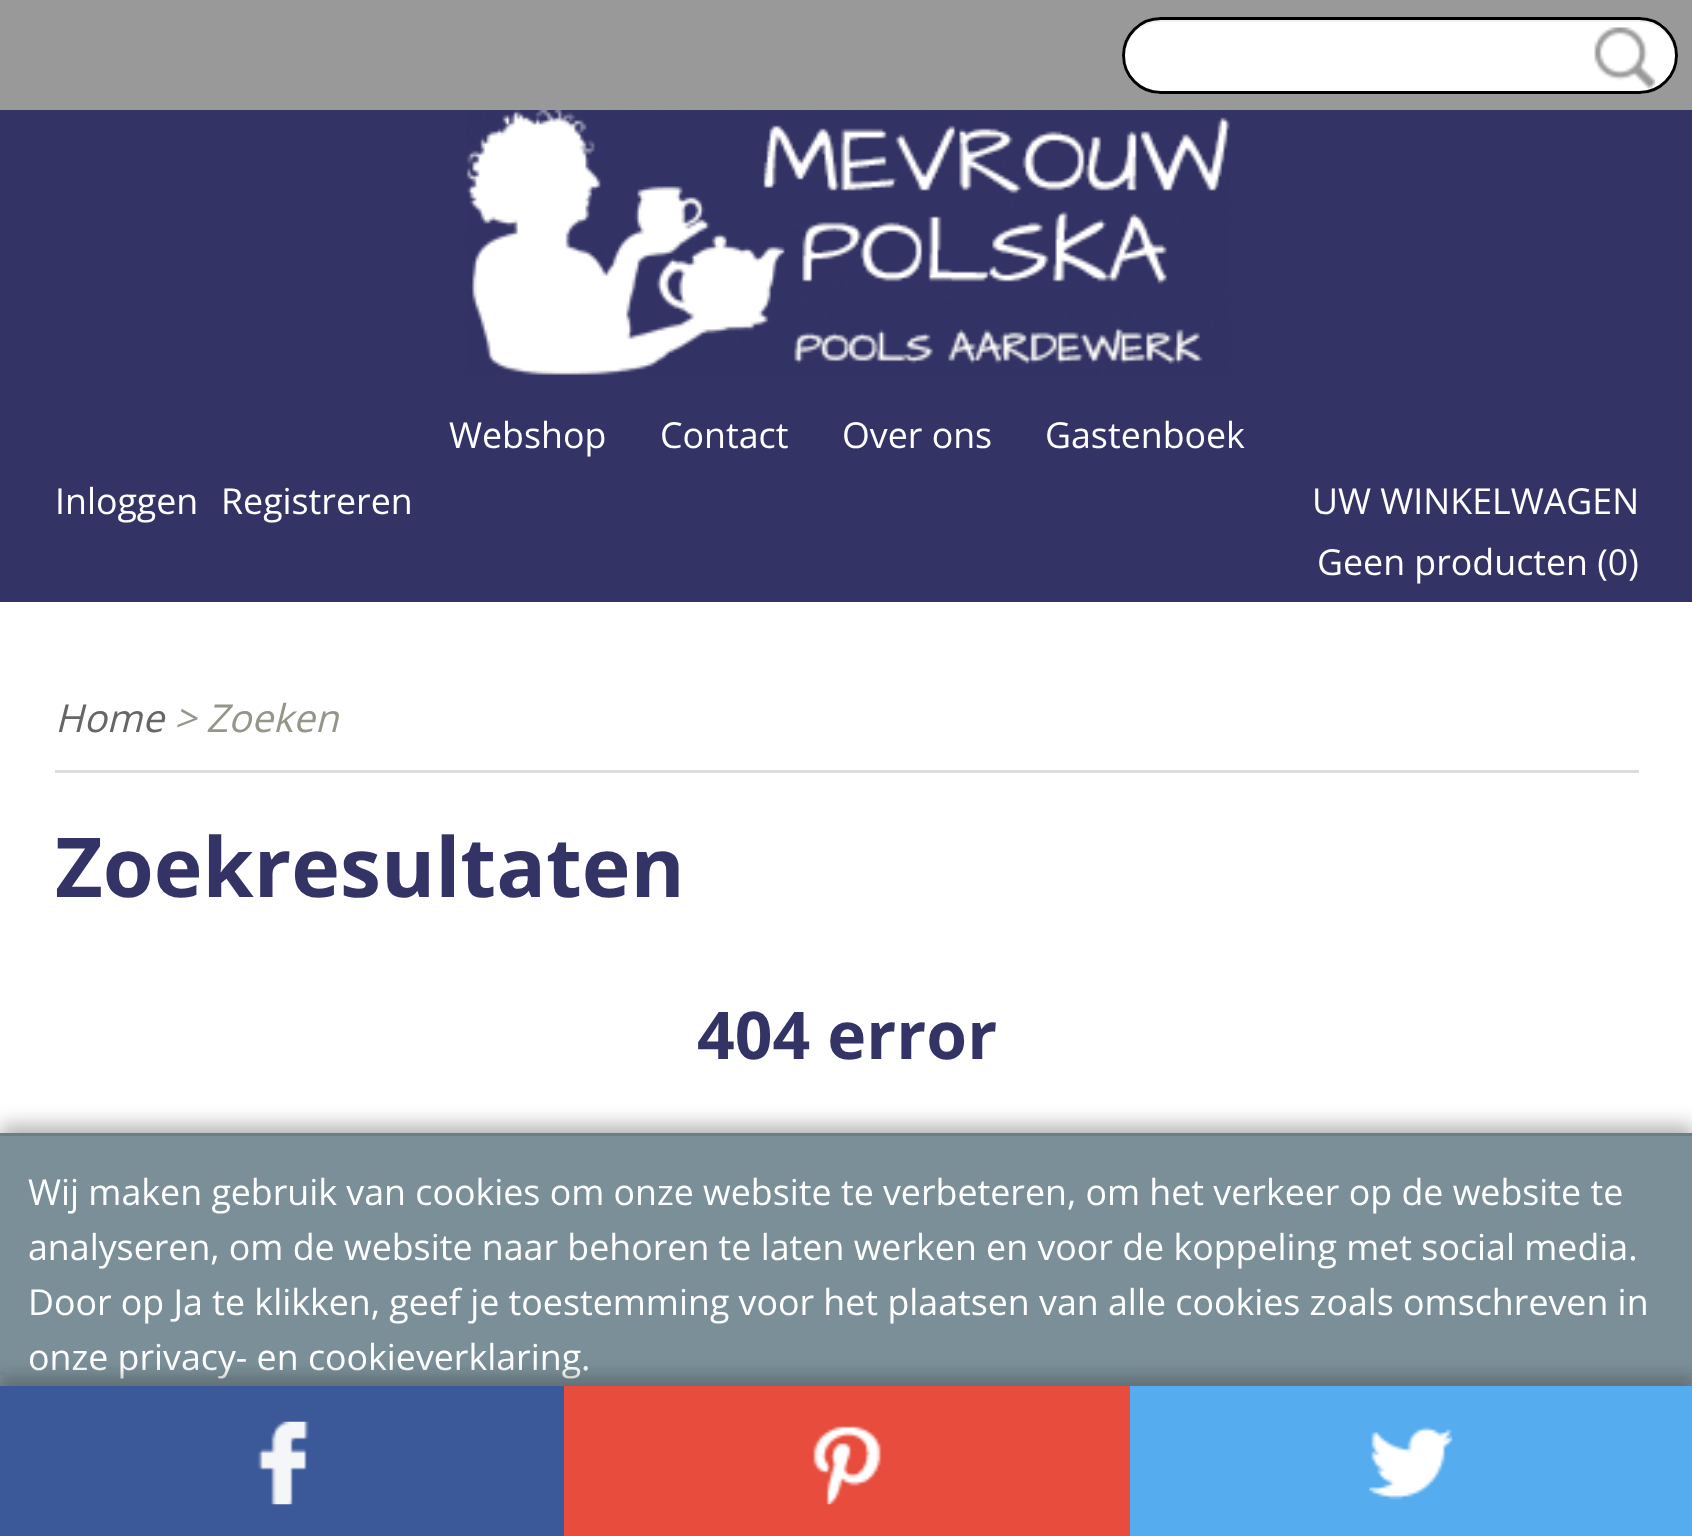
<?xml version="1.0" encoding="UTF-8"?>
<svg xmlns="http://www.w3.org/2000/svg" width="1692" height="1536">
    <defs>
        <filter id="blur1" x="-50%" y="-200%" width="200%" height="500%"><feGaussianBlur stdDeviation="9.5"/></filter>
        <filter id="blur2" x="-50%" y="-200%" width="200%" height="500%"><feGaussianBlur stdDeviation="7"/></filter>
    </defs>
    <rect width="100%" height="100%" fill="#FFFFFF"/>
    <rect x="0" y="0" width="1692" height="110" fill="#999999"/>
    <rect x="1122" y="17" width="556" height="77" rx="38.5" fill="#FFFFFF"/>
    <path d="M 1160 22 H 1639 C 1658 22 1674 37 1675 56 C 1676 36 1659 19 1639 19 H 1161 C 1141 19 1124 36 1125 56 C 1126 37 1141 22 1160 22 Z" fill="#F0F0F0"/>
    <rect x="1123.5" y="18.5" width="553" height="74" rx="37" fill="none" stroke="#000000" stroke-width="3"/>
    <image x="1594" y="27" width="62" height="62" href="img_01.png"/>
    <rect x="0" y="110" width="1692" height="492" fill="#333366"/>
    <image x="466" y="110" width="764" height="265" href="img_02.png"/>
    <text x="449" y="448" font-family="Open Sans" font-size="35.75" fill="#FFFFFF">Webshop</text>
    <text x="660" y="448" font-family="Open Sans" font-size="35.75" fill="#FFFFFF">Contact</text>
    <text x="842" y="448" font-family="Open Sans" font-size="35.75" fill="#FFFFFF">Over ons</text>
    <text x="1045" y="448" font-family="Open Sans" font-size="35.75" fill="#FFFFFF">Gastenboek</text>
    <text x="55" y="514" font-family="Open Sans" font-size="35.75" fill="#FFFFFF">Inloggen</text>
    <text x="221" y="514" font-family="Open Sans" font-size="35.75" fill="#FFFFFF">Registreren</text>
    <text x="1312" y="514" font-family="Open Sans" font-size="35.75" fill="#FFFFFF">UW WINKELWAGEN</text>
    <text x="1317" y="575" font-family="Open Sans" font-size="35.75" fill="#FFFFFF">Geen producten (0)</text>
    <rect x="55" y="770" width="1584" height="3" fill="#DDDDDD"/>
    <text x="55" y="732" font-family="Open Sans" font-size="38.5" font-style="italic" fill="#666666">Home</text>
    <text x="174" y="732" font-family="Open Sans" font-size="38.5" font-style="italic" fill="#969589">&gt; Zoeken</text>
    <text x="55" y="897" font-family="Open Sans" font-size="82.5" font-weight="700" fill="#333366">Zoekresultaten</text>
    <text x="697" y="1059" font-family="Open Sans" font-size="66" font-weight="700" fill="#333366">404 error</text>
    <rect x="0" y="1125" width="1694" height="404" fill="#000000" fill-opacity="0.3" filter="url(#blur1)"/>
    <rect x="0" y="1136" width="1692" height="250" fill="#7A8F98"/>
    <rect x="0" y="1133" width="1692" height="3" fill="#697E87"/>
    <text font-family="Open Sans" font-size="35.75" fill="#FFFFFF">
        <tspan x="28" y="1205">Wij maken gebruik van cookies om onze website te verbeteren, om het verkeer op de website te</tspan>
        <tspan x="28" y="1260">analyseren, om de website naar behoren te laten werken en voor de koppeling met social media.</tspan>
        <tspan x="28" y="1315">Door op Ja te klikken, geef je toestemming voor het plaatsen van alle cookies zoals omschreven in</tspan>
        <tspan x="28" y="1370">onze privacy- en cookieverklaring.</tspan>
    </text>
    <rect x="0" y="1375" width="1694" height="151" fill="#323232" fill-opacity="0.3" filter="url(#blur2)"/>
    <rect x="0" y="1386" width="564" height="150" fill="#3B5998"/>
    <image x="257" y="1421" width="52" height="84" href="img_03.png"/>
    <rect x="564" y="1386" width="566" height="150" fill="#E74C3C"/>
    <image x="813" y="1426" width="69" height="79" href="img_04.png"/>
    <rect x="1130" y="1386" width="562" height="150" fill="#55ACEE"/>
    <image x="1369" y="1426" width="84" height="74" href="img_05.png"/>
</svg>
